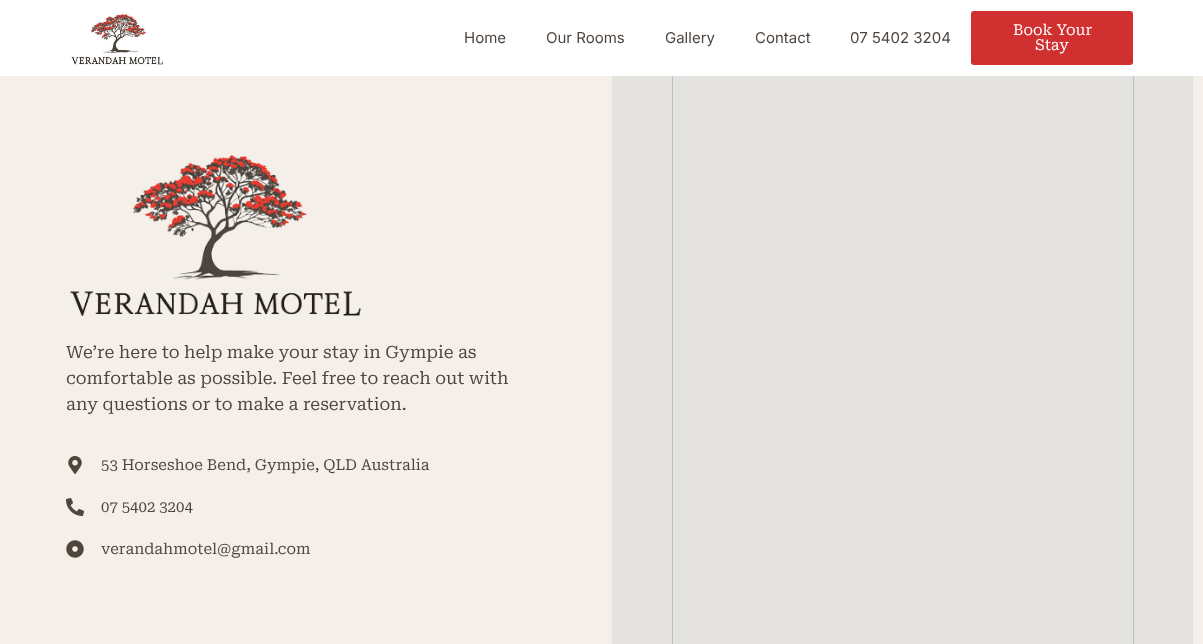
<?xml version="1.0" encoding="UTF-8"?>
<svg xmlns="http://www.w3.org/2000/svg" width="1203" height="644">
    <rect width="100%" height="100%" fill="#F5EFE9"/>
    <rect x="0" y="0" width="1203" height="76" fill="#FFFFFF"/>
    <image x="70" y="12" width="94" height="53" href="img_01.png"/>
    <text x="464" y="43" font-family="Inter" font-size="15" fill="#4F453D">Home</text>
    <text x="546" y="43" font-family="Inter" font-size="15" fill="#4F453D">Our Rooms</text>
    <text x="665" y="43" font-family="Inter" font-size="15" fill="#4F453D">Gallery</text>
    <text x="755" y="43" font-family="Inter" font-size="15" fill="#4F453D">Contact</text>
    <text x="850" y="43" font-family="Inter" font-size="15" fill="#4F453D">07 5402 3204</text>
    <rect x="971" y="11" width="162" height="54" rx="3" fill="#D13031"/>
    <text x="1013" y="35" font-family="Roboto Serif" font-size="15" fill="#FFFFFF">Book Your</text>
    <text x="1035" y="50" font-family="Roboto Serif" font-size="15" fill="#FFFFFF">Stay</text>
    <image x="70" y="155" width="291" height="161" href="img_02.png"/>
    <text font-family="Roboto Serif" font-size="17" fill="#4F453D">
        <tspan x="66" y="358">We’re here to help make your stay in Gympie as</tspan>
        <tspan x="66" y="384">comfortable as possible. Feel free to reach out with</tspan>
        <tspan x="66" y="410">any questions or to make a reservation.</tspan>
    </text>
    <image x="68" y="456" width="14" height="18" href="img_03.png"/>
    <text x="101" y="470" font-family="Roboto Serif" font-size="15" fill="#4F453D">53 Horseshoe Bend, Gympie, QLD Australia</text>
    <image x="66" y="498" width="18" height="18" href="img_04.png"/>
    <text x="101" y="512" font-family="Roboto Serif" font-size="15" fill="#4F453D">07 5402 3204</text>
    <image x="66" y="540" width="18" height="18" href="img_05.png"/>
    <text x="101" y="554" font-family="Roboto Serif" font-size="15" fill="#4F453D">verandahmotel@gmail.com</text>
    <image x="612" y="76" width="581" height="568" href="img_06.png"/>
</svg>
